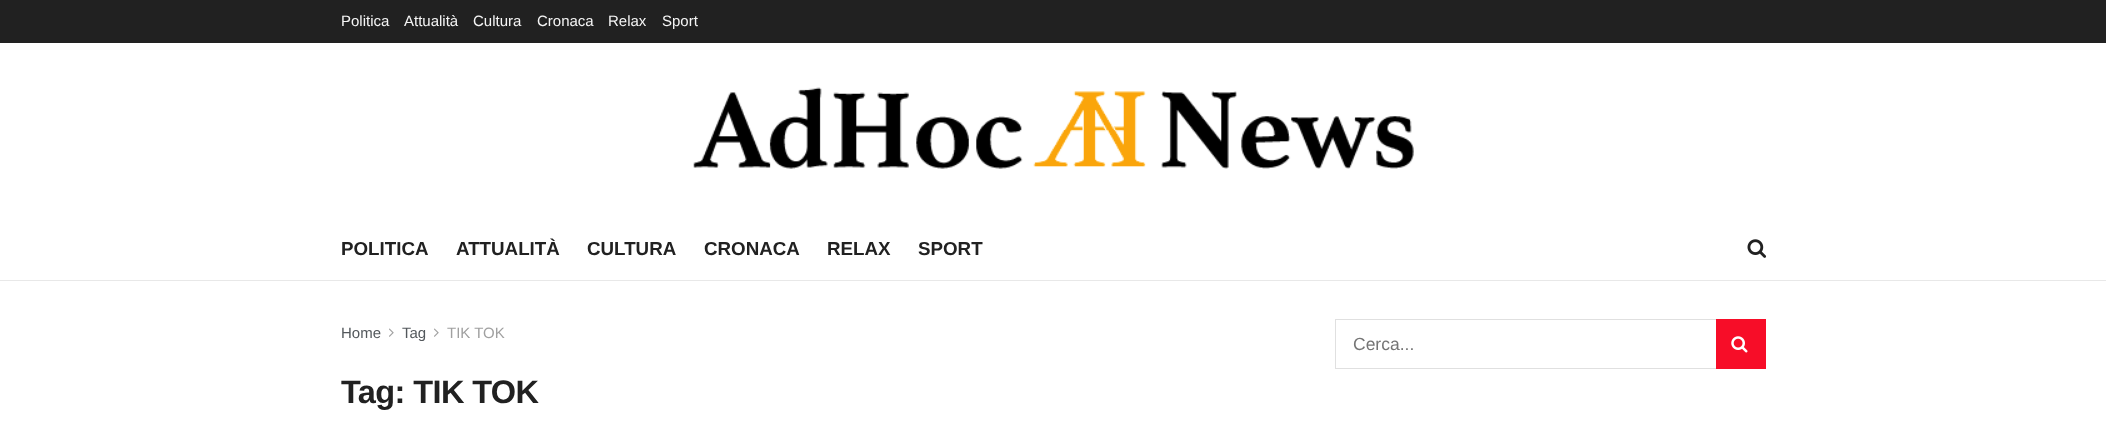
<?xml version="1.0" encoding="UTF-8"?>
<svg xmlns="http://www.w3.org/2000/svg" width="2106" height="442">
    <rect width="100%" height="100%" fill="#FFFFFF"/>
    <rect x="0" y="0" width="2106" height="43" fill="#212121"/>
    <text x="341" y="26" font-family="Liberation Sans" font-size="15" fill="#F5F5F5">Politica</text>
    <text x="404" y="26" font-family="Liberation Sans" font-size="15" fill="#F5F5F5">Attualità</text>
    <text x="473" y="26" font-family="Liberation Sans" font-size="15" fill="#F5F5F5">Cultura</text>
    <text x="537" y="26" font-family="Liberation Sans" font-size="15" fill="#F5F5F5">Cronaca</text>
    <text x="608" y="26" font-family="Liberation Sans" font-size="15" fill="#F5F5F5">Relax</text>
    <text x="662" y="26" font-family="Liberation Sans" font-size="15" fill="#F5F5F5">Sport</text>
    <image x="693" y="87" width="721" height="82" href="img_01.png"/>
    <rect x="0" y="280" width="2106" height="1" fill="#E8E8E8"/>
    <text x="341" y="255" font-family="Liberation Sans" font-size="18.75" font-weight="700" fill="#212121">POLITICA</text>
    <text x="456" y="255" font-family="Liberation Sans" font-size="18.75" font-weight="700" fill="#212121">ATTUALITÀ</text>
    <text x="587" y="255" font-family="Liberation Sans" font-size="18.75" font-weight="700" fill="#212121">CULTURA</text>
    <text x="704" y="255" font-family="Liberation Sans" font-size="18.75" font-weight="700" fill="#212121">CRONACA</text>
    <text x="827" y="255" font-family="Liberation Sans" font-size="18.75" font-weight="700" fill="#212121">RELAX</text>
    <text x="918" y="255" font-family="Liberation Sans" font-size="18.75" font-weight="700" fill="#212121">SPORT</text>
    <image x="1747" y="239" width="20" height="19" href="img_02.png"/>
    <text x="341" y="338" font-family="Liberation Sans" font-size="15" fill="#53585C">Home</text>
    <image x="389" y="328" width="5" height="9" href="img_03.png"/>
    <text x="402" y="338" font-family="Liberation Sans" font-size="15" fill="#53585C">Tag</text>
    <image x="434" y="328" width="5" height="9" href="img_03.png"/>
    <text x="447" y="338" font-family="Liberation Sans" font-size="15" fill="#A0A0A0">TIK TOK</text>
    <text x="341" y="403" font-family="Liberation Sans" font-size="32.5" font-weight="700" letter-spacing="-0.6" fill="#212121">Tag: TIK TOK</text>
    <rect x="1335.5" y="319.5" width="430" height="49" fill="none" stroke="#E0E0E0"/>
    <text x="1353" y="350" font-family="Liberation Sans" font-size="17.5" fill="#757575">Cerca...</text>
    <rect x="1716" y="319" width="50" height="50" fill="#F70D28"/>
    <image x="1731" y="336" width="17" height="17" href="img_04.png"/>
</svg>
